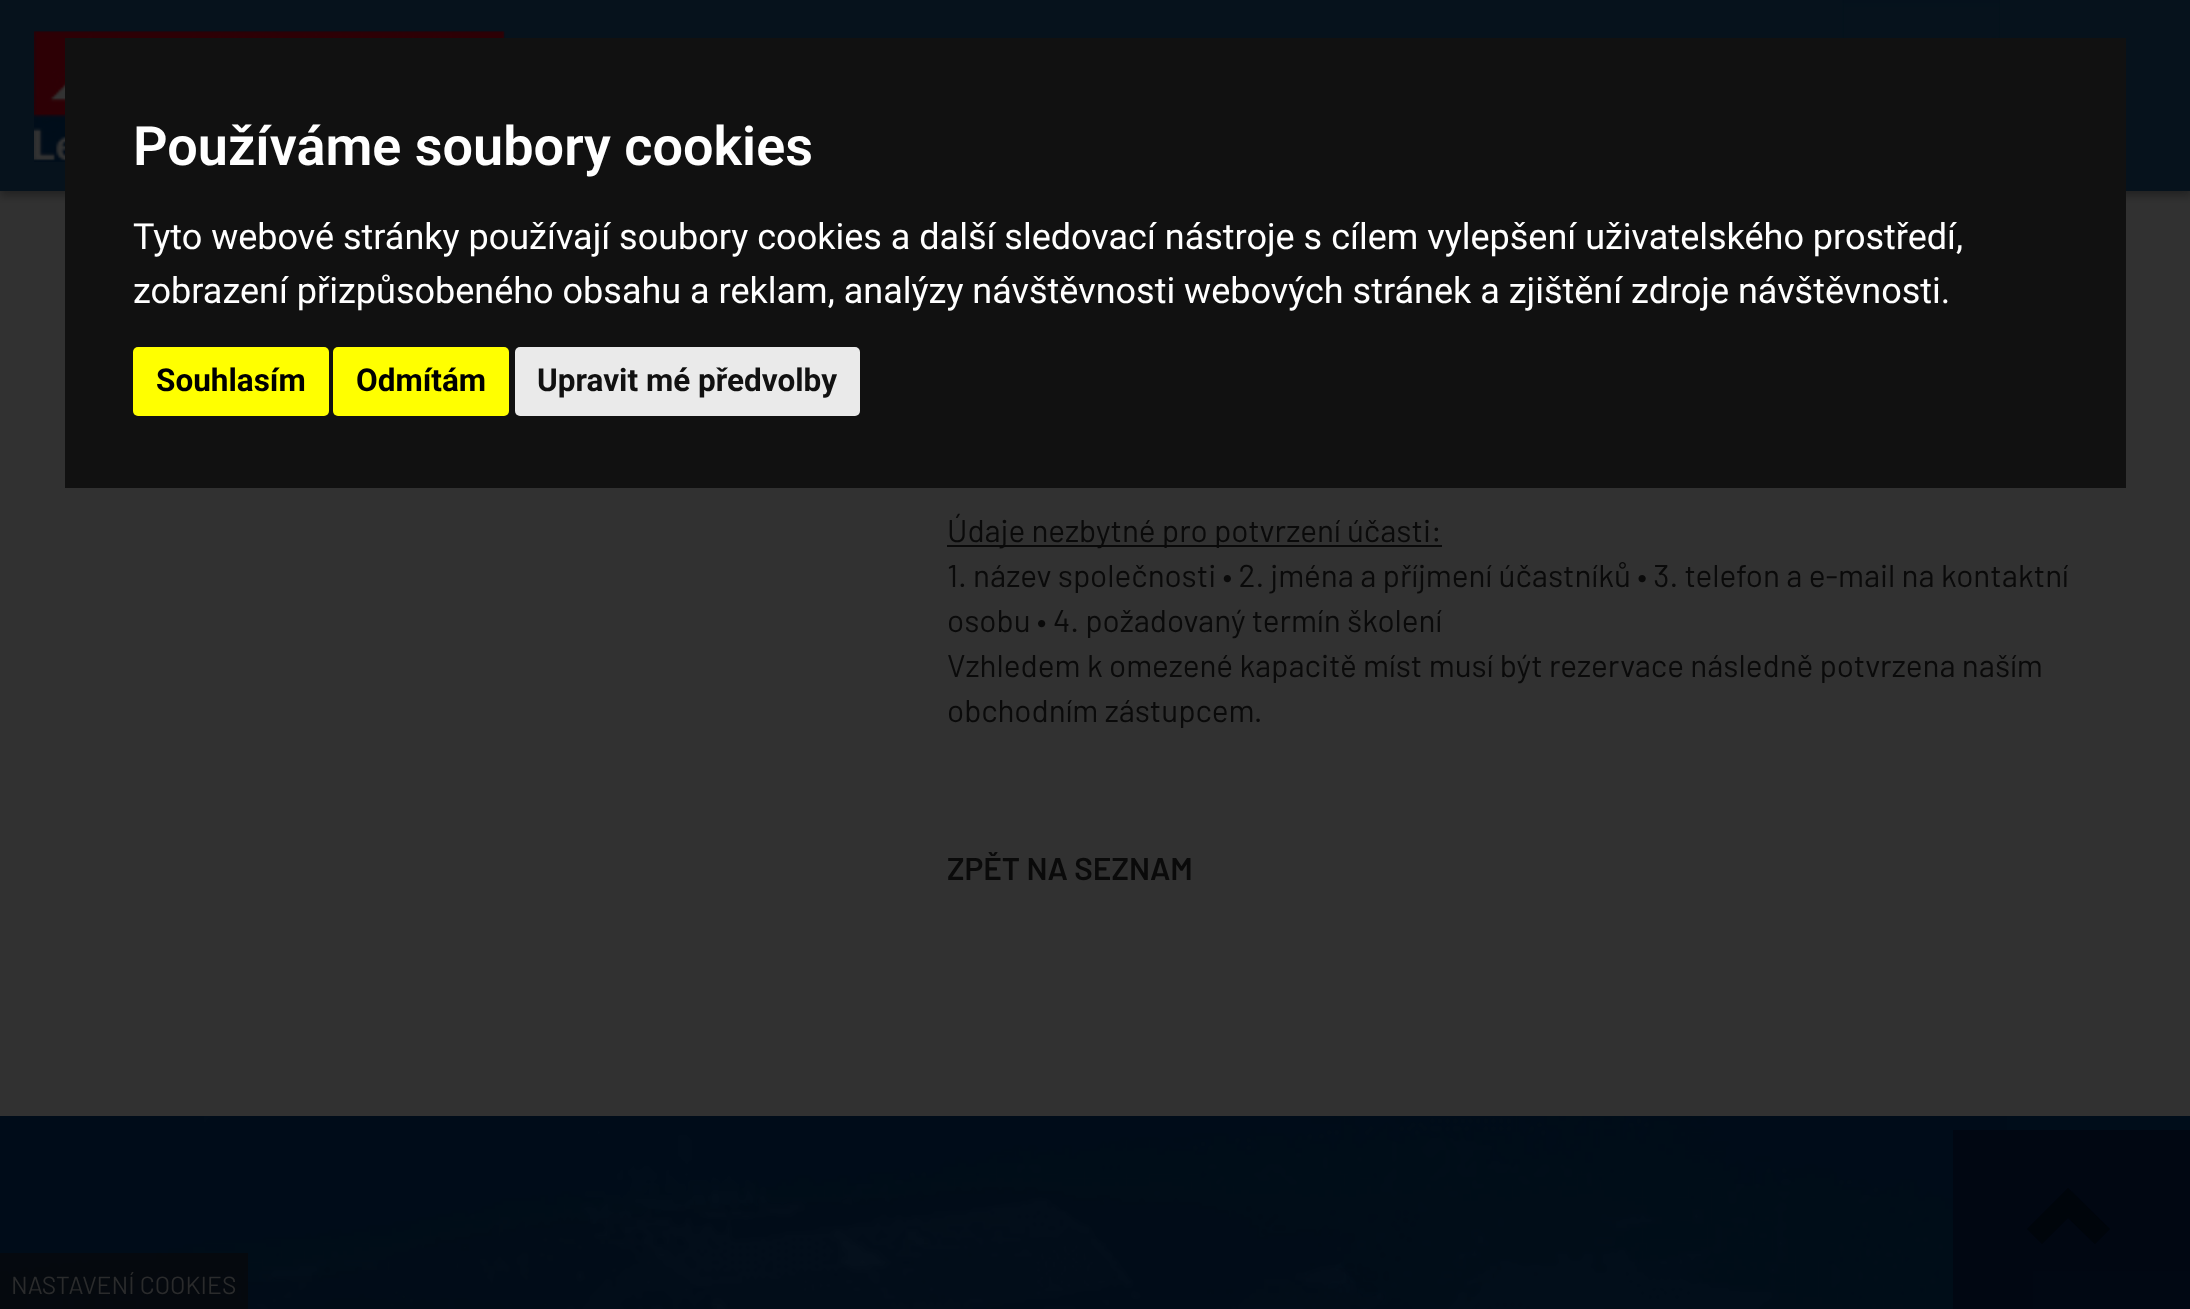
<?xml version="1.0" encoding="UTF-8"?>
<svg xmlns="http://www.w3.org/2000/svg" width="2190" height="1309">
    <defs>
        <clipPath id="clip1"><rect x="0" y="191" width="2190" height="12"/></clipPath>
        <filter id="blur1" x="-50%" y="-200%" width="200%" height="500%"><feGaussianBlur stdDeviation="4.5"/></filter>
    </defs>
    <rect width="100%" height="100%" fill="#000D1A"/>
    <rect x="0" y="191" width="2190" height="925" fill="#313131"/>
    <rect x="0" y="0" width="2190" height="191" fill="#06121C"/>
    <g clip-path="url(#clip1)">
        <rect x="0" y="5" width="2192" height="191" fill="#000000" fill-opacity="0.3" filter="url(#blur1)"/>
    </g>
    <image x="34" y="31" width="471" height="131" href="img_02.png"/>
    <rect x="65" y="38" width="2061" height="450" fill="#111111"/>
    <text x="133" y="165" font-family="Roboto" font-size="54" font-weight="600" fill="#FFFFFF">Používáme soubory cookies</text>
    <text font-family="Roboto" font-size="36" fill="#FFFFFF">
        <tspan x="133" y="249">Tyto webové stránky používají soubory cookies a další sledovací nástroje s cílem vylepšení uživatelského prostředí,</tspan>
        <tspan x="133" y="303">zobrazení přizpůsobeného obsahu a reklam, analýzy návštěvnosti webových stránek a zjištění zdroje návštěvnosti.</tspan>
    </text>
    <rect x="133" y="347" width="196" height="69" rx="5" fill="#FFFF00"/>
    <text x="156" y="391" font-family="Roboto" font-size="31.5" font-weight="700" fill="#000000">Souhlasím</text>
    <rect x="333" y="347" width="176" height="69" rx="5" fill="#FFFF00"/>
    <text x="356" y="391" font-family="Roboto" font-size="31.5" font-weight="700" fill="#000000">Odmítám</text>
    <rect x="515" y="347" width="345" height="69" rx="5" fill="#EAEAEA"/>
    <text x="537" y="391" font-family="Roboto" font-size="31.5" font-weight="700" fill="#111111">Upravit mé předvolby</text>
    <image x="1842" y="0" width="158" height="38" href="img_01.png"/>
    <rect x="947" y="545" width="495" height="2" fill="#0A0A0A"/>
    <text font-family="Barlow" font-size="31.5" fill="#0A0A0A">
        <tspan x="947" y="542">Údaje nezbytné pro potvrzení účasti:</tspan>
        <tspan x="947" y="587">1. název společnosti • 2. jména a příjmení účastníků • 3. telefon a e-mail na kontaktní</tspan>
        <tspan x="947" y="632">osobu • 4. požadovaný termín školení</tspan>
        <tspan x="947" y="677">Vzhledem k omezené kapacitě míst musí být rezervace následně potvrzena naším</tspan>
        <tspan x="947" y="722">obchodním zástupcem.</tspan>
    </text>
    <text x="947" y="880" font-family="Barlow" font-size="31.5" font-weight="600" fill="#0A0A0A">ZPĚT NA SEZNAM</text>
    <image x="0" y="1116" width="2007" height="193" href="img_03.png"/>
    <rect x="0" y="1253" width="248" height="56" fill="#06090D" fill-opacity="0.8"/>
    <text x="11" y="1294" font-family="Barlow" font-size="24.75" fill="#2A2B2C">NASTAVENÍ COOKIES</text>
    <rect x="1953" y="1130" width="237" height="179" fill="#010610" fill-opacity="0.7"/>
    <path d="M 2110 1229 L 2095 1244 L 2068 1218 L 2042 1244 L 2027 1229 L 2068 1188 Z" fill="#00050B"/>
</svg>
